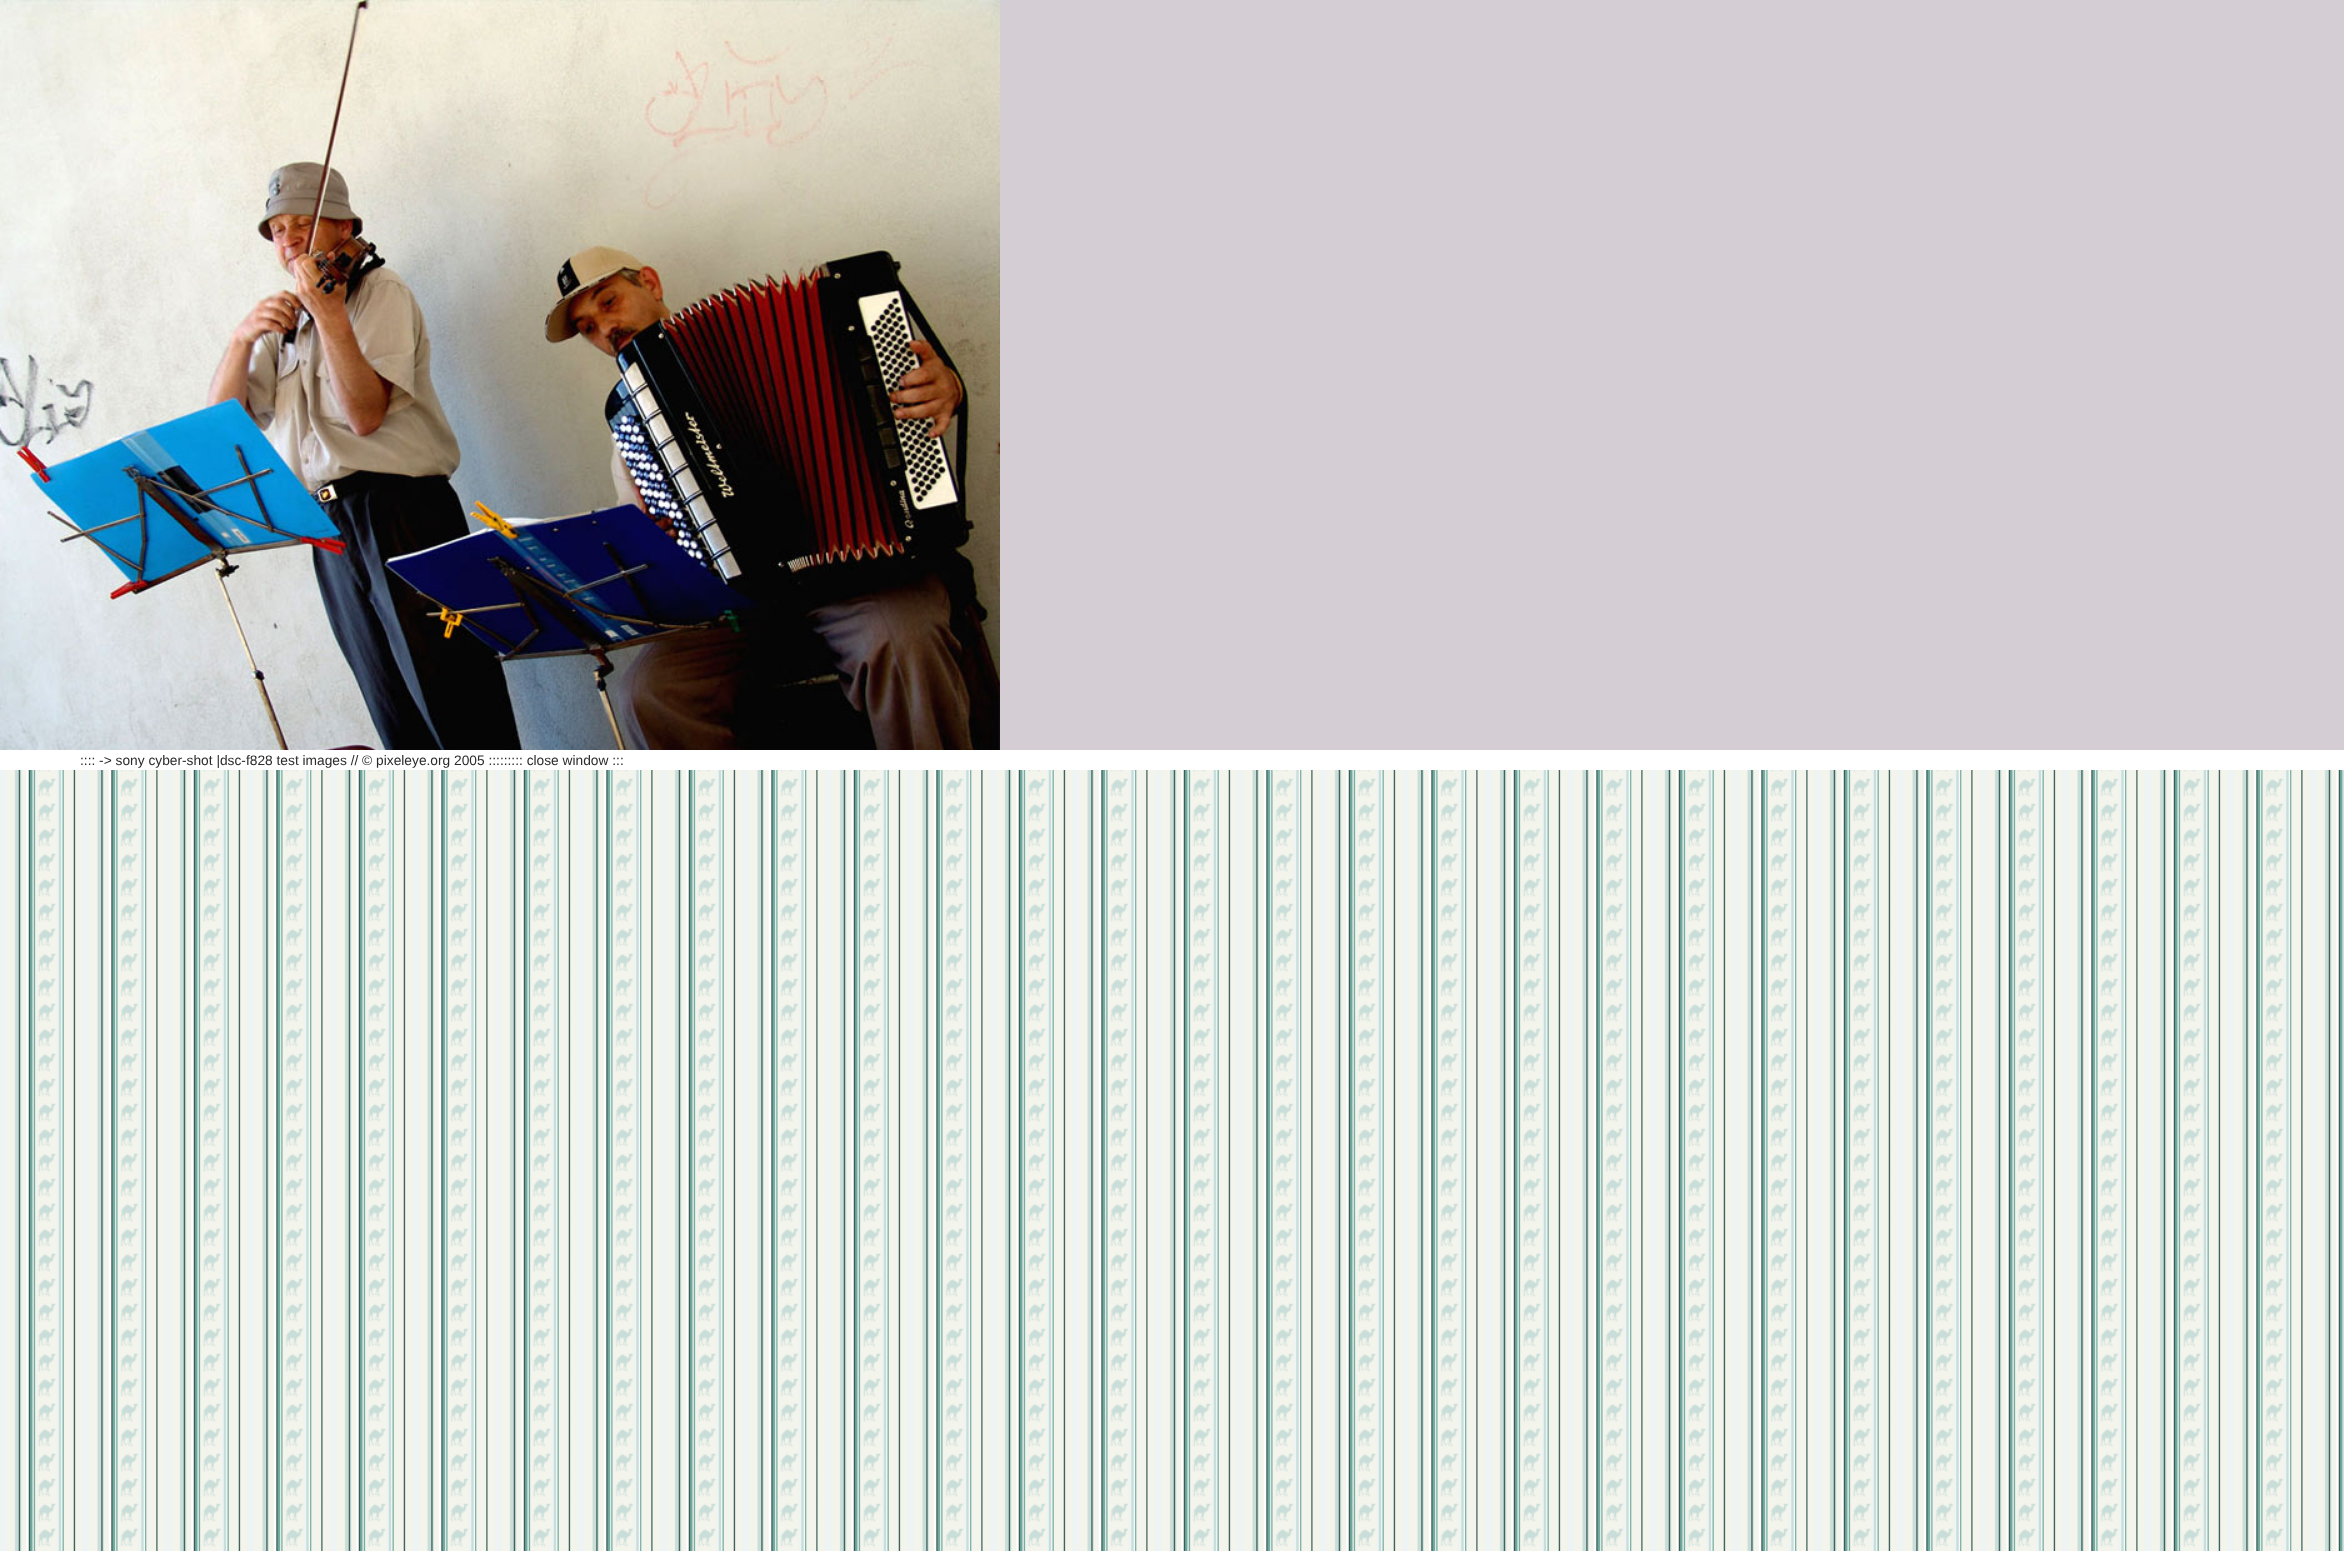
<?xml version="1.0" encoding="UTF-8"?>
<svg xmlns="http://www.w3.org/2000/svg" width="2344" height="1551">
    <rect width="100%" height="100%" fill="#FFFFFF"/>
    <image x="0" y="770" width="2344" height="781" href="img_01.png"/>
    <rect x="1000" y="0" width="1344" height="750" fill="#D4CDD3"/>
    <image x="0" y="0" width="1000" height="750" href="img_02.png"/>
    <text x="80" y="765" font-family="Liberation Sans" font-size="13.75" fill="#2C2A2A">:::: -&gt; sony cyber-shot |dsc-f828 test images // © pixeleye.org 2005 ::::::::: close window :::</text>
</svg>
